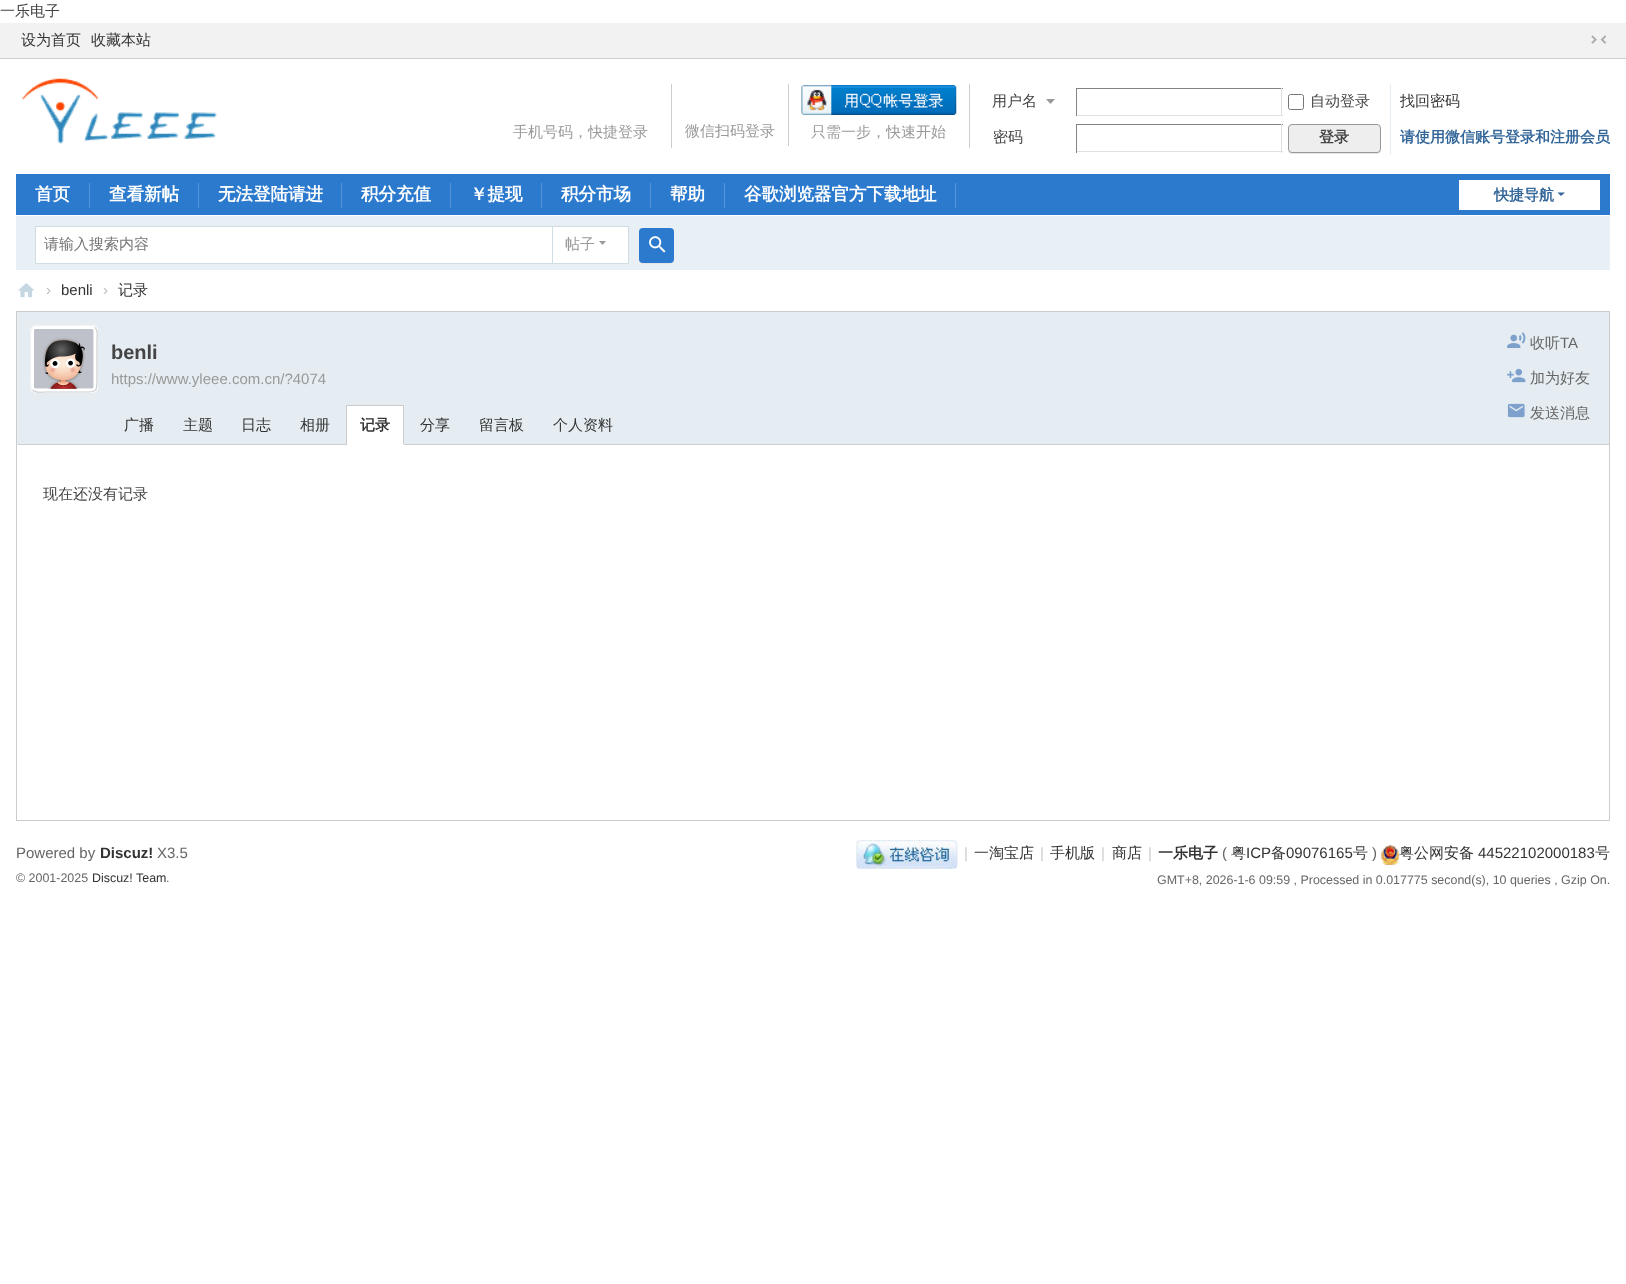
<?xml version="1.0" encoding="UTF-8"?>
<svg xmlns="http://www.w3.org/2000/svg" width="1626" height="1284">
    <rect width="100%" height="100%" fill="#FFFFFF"/>
    <text x="0" y="16" font-family="WenQuanYi Zen Hei" font-size="15" font-weight="500" fill="#444444">一乐电子</text>
    <rect x="0" y="23" width="1626" height="35" fill="#F2F2F2"/>
    <rect x="0" y="58" width="1626" height="1" fill="#CDCDCD"/>
    <text x="21" y="45" font-family="WenQuanYi Zen Hei" font-size="15" font-weight="500" fill="#333333">设为首页</text>
    <text x="91" y="45" font-family="WenQuanYi Zen Hei" font-size="15" font-weight="500" fill="#333333">收藏本站</text>
    <image x="1591" y="35" width="16" height="9" href="img_01.png"/>
    <image x="22" y="78" width="195" height="66" href="img_02.png"/>
    <rect x="671" y="84" width="1" height="64" fill="#CDCDCD"/>
    <text x="513" y="137" font-family="WenQuanYi Zen Hei" font-size="15" font-weight="500" fill="#999999">手机号码，快捷登录</text>
    <rect x="788" y="84" width="1" height="62" fill="#CDCDCD"/>
    <text x="685" y="136" font-family="WenQuanYi Zen Hei" font-size="15" font-weight="500" fill="#999999">微信扫码登录</text>
    <rect x="969" y="84" width="1" height="64" fill="#CDCDCD"/>
    <image x="801" y="85" width="156" height="30" href="img_03.png"/>
    <text x="811" y="137" font-family="WenQuanYi Zen Hei" font-size="15" font-weight="500" fill="#999999">只需一步，快速开始</text>
    <path d="M 1055 99 H 1046 L 1050.5 104 Z" fill="#999999"/>
    <text x="992" y="106" font-family="WenQuanYi Zen Hei" font-size="15" font-weight="500" fill="#444444">用户名</text>
    <rect x="1076" y="88" width="207" height="1" fill="#848484"/>
    <rect x="1281" y="88" width="1" height="28" fill="#E0E0E0"/>
    <rect x="1076" y="115" width="207" height="1" fill="#E0E0E0"/>
    <rect x="1076" y="88" width="1" height="28" fill="#848484"/>
    <rect x="1288.5" y="94.5" width="15" height="15" rx="2" fill="none" stroke="#767676"/>
    <text x="1310" y="106" font-family="WenQuanYi Zen Hei" font-size="15" font-weight="500" fill="#444444">自动登录</text>
    <text x="1400" y="106" font-family="WenQuanYi Zen Hei" font-size="15" font-weight="500" fill="#333333">找回密码</text>
    <text x="993" y="142" font-family="WenQuanYi Zen Hei" font-size="15" font-weight="500" fill="#444444">密码</text>
    <rect x="1076" y="124" width="207" height="1" fill="#848484"/>
    <rect x="1281" y="124" width="1" height="29" fill="#E0E0E0"/>
    <rect x="1076" y="151" width="207" height="1" fill="#E0E0E0"/>
    <rect x="1076" y="124" width="1" height="29" fill="#848484"/>
    <rect x="1390" y="84" width="1" height="71" fill="#E5EDF2"/>
    <path d="M 1288 151 C 1288 153 1290 154 1292 154 H 1377 C 1379 154 1381 152 1381 150 C 1380 152 1379 152 1378 152 H 1291 C 1290 152 1289 152 1288 151 Z" fill="#E5E5E5"/>
    <rect x="1288.5" y="124.5" width="92" height="28" rx="3.5" fill="#EEEEEE" stroke="#999999"/>
    <text x="1319" y="142" font-family="WenQuanYi Zen Hei" font-size="15" font-weight="700" fill="#444444">登录</text>
    <text x="1400" y="142" font-family="WenQuanYi Zen Hei" font-size="15" font-weight="700" fill="#336699">请使用微信账号登录和注册会员</text>
    <rect x="16" y="174" width="1594" height="41" fill="#2B7ACD"/>
    <rect x="89" y="183" width="1" height="25" fill="#5595D7"/>
    <text x="35" y="200" font-family="WenQuanYi Zen Hei" font-size="17.5" font-weight="700" fill="#FFFFFF">首页</text>
    <rect x="198" y="183" width="1" height="25" fill="#5595D7"/>
    <text x="109" y="200" font-family="WenQuanYi Zen Hei" font-size="17.5" font-weight="700" fill="#FFFFFF">查看新帖</text>
    <rect x="341" y="183" width="1" height="25" fill="#5595D7"/>
    <text x="218" y="200" font-family="WenQuanYi Zen Hei" font-size="17.5" font-weight="700" fill="#FFFFFF">无法登陆请进</text>
    <rect x="450" y="183" width="1" height="25" fill="#5595D7"/>
    <text x="361" y="200" font-family="WenQuanYi Zen Hei" font-size="17.5" font-weight="700" fill="#FFFFFF">积分充值</text>
    <rect x="541" y="183" width="1" height="25" fill="#5595D7"/>
    <text x="470" y="200" font-family="WenQuanYi Zen Hei" font-size="17.5" font-weight="700" fill="#FFFFFF">￥提现</text>
    <rect x="650" y="183" width="1" height="25" fill="#5595D7"/>
    <text x="561" y="200" font-family="WenQuanYi Zen Hei" font-size="17.5" font-weight="700" fill="#FFFFFF">积分市场</text>
    <rect x="724" y="183" width="1" height="25" fill="#5595D7"/>
    <text x="670" y="200" font-family="WenQuanYi Zen Hei" font-size="17.5" font-weight="700" fill="#FFFFFF">帮助</text>
    <rect x="955" y="183" width="1" height="25" fill="#5595D7"/>
    <text x="744" y="200" font-family="WenQuanYi Zen Hei" font-size="17.5" font-weight="700" fill="#FFFFFF">谷歌浏览器官方下载地址</text>
    <rect x="1459" y="180" width="141" height="30" fill="#FFFFFF"/>
    <text x="1494" y="200" font-family="WenQuanYi Zen Hei" font-size="15" font-weight="700" fill="#336699">快捷导航</text>
    <path d="M 1557.5 192.5 H 1565 L 1561 196 Z" fill="#336699"/>
    <rect x="16" y="216" width="1594" height="54" fill="#E8EFF5"/>
    <rect x="550" y="226" width="79" height="1" fill="#CFDEE3"/>
    <rect x="628" y="226" width="1" height="38" fill="#CFDEE3"/>
    <rect x="550" y="263" width="79" height="1" fill="#CFDEE3"/>
    <rect x="35.5" y="226.5" width="517" height="37" fill="#FFFFFF" stroke="#CFDEE3"/>
    <text x="44" y="249" font-family="WenQuanYi Zen Hei" font-size="15" font-weight="500" fill="#757575">请输入搜索内容</text>
    <rect x="553" y="227" width="75" height="36" fill="#FFFFFF"/>
    <text x="565" y="249" font-family="WenQuanYi Zen Hei" font-size="15" font-weight="500" fill="#999999">帖子</text>
    <path d="M 599 241 H 606 L 602.5 245 Z" fill="#999999"/>
    <path d="M 639 260 C 639 262.5 641 264 643 264 H 670 C 672 264 674 262 674 260 V 233 V 231.5 V 259 C 674 261 672 262.5 670 262.5 H 642.5 C 641 262.5 639.5 261.5 639 260 Z" fill="#E5E5E5"/>
    <rect x="639" y="228" width="35" height="35" rx="4" fill="#2B7ACD"/>
    <image x="649" y="236" width="17" height="17" href="img_04.png"/>
    <image x="18" y="283" width="17" height="15" href="img_05.png"/>
    <text x="46" y="295" font-family="Liberation Sans" font-size="15" fill="#BDBDBD">›</text>
    <text x="61" y="295" font-family="Liberation Sans" font-size="15" fill="#333333">benli</text>
    <text x="103" y="295" font-family="Liberation Sans" font-size="15" fill="#BDBDBD">›</text>
    <text x="118" y="295" font-family="WenQuanYi Zen Hei" font-size="15" font-weight="500" fill="#333333">记录</text>
    <rect x="17" y="312" width="1592" height="133" fill="#E5EDF2"/>
    <rect x="16" y="311" width="1594" height="1" fill="#CCCCCC"/>
    <rect x="1609" y="311" width="1" height="510" fill="#CCCCCC"/>
    <rect x="16" y="311" width="1" height="134" fill="#CCCCCC"/>
    <rect x="30" y="325" width="68" height="68" rx="6" fill="#FFFFFF"/>
    <path d="M 95 327.5 C 98.5 330.5 97 337.5 97 340.5 V 377 C 97 392.5 97.5 392 82 392 H 45.5 C 42.5 392 35.5 393.5 32.5 390" fill="none" stroke="#CDCDCD" stroke-width="1.2"/>
    <path d="M 32.5 390 C 29 387 30.5 380 30.5 377 V 340.5 C 30.5 325 30 325.5 45.5 325.5 H 82 C 85 325.5 92 324 95 327.5" fill="none" stroke="#F2F2F2" stroke-width="1.2"/>
    <image x="34" y="329" width="60" height="60" href="img_06.png"/>
    <text x="111" y="359" font-family="Liberation Sans" font-size="20" font-weight="700" fill="#444444">benli</text>
    <text x="111" y="384" font-family="Liberation Sans" font-size="15" fill="#999999">https://www.yleee.com.cn/?4074</text>
    <image x="1507" y="332" width="19" height="16" href="img_07.png"/>
    <text x="1530" y="348" font-family="WenQuanYi Zen Hei" font-size="15" font-weight="500" fill="#666666">收听</text>
    <text x="1560" y="348" font-family="Liberation Sans" font-size="15" fill="#666666">TA</text>
    <image x="1507" y="368" width="19" height="15" href="img_08.png"/>
    <text x="1530" y="383" font-family="WenQuanYi Zen Hei" font-size="15" font-weight="500" fill="#666666">加为好友</text>
    <image x="1507" y="403" width="18" height="15" href="img_09.png"/>
    <text x="1530" y="418" font-family="WenQuanYi Zen Hei" font-size="15" font-weight="500" fill="#666666">发送消息</text>
    <rect x="18" y="444" width="1591" height="1" fill="#CDCDCD"/>
    <text x="124" y="430" font-family="WenQuanYi Zen Hei" font-size="15" font-weight="500" fill="#333333">广播</text>
    <text x="183" y="430" font-family="WenQuanYi Zen Hei" font-size="15" font-weight="500" fill="#333333">主题</text>
    <text x="241" y="430" font-family="WenQuanYi Zen Hei" font-size="15" font-weight="500" fill="#333333">日志</text>
    <text x="300" y="430" font-family="WenQuanYi Zen Hei" font-size="15" font-weight="500" fill="#333333">相册</text>
    <rect x="347" y="406" width="56" height="38" fill="#FFFFFF"/>
    <rect x="346" y="405" width="58" height="1" fill="#CCCCCC"/>
    <rect x="403" y="405" width="1" height="40" fill="#CCCCCC"/>
    <rect x="346" y="444" width="58" height="1" fill="#FFFFFF"/>
    <rect x="346" y="405" width="1" height="40" fill="#CCCCCC"/>
    <text x="360" y="430" font-family="WenQuanYi Zen Hei" font-size="15" font-weight="700" fill="#333333">记录</text>
    <text x="420" y="430" font-family="WenQuanYi Zen Hei" font-size="15" font-weight="500" fill="#333333">分享</text>
    <text x="479" y="430" font-family="WenQuanYi Zen Hei" font-size="15" font-weight="500" fill="#333333">留言板</text>
    <text x="553" y="430" font-family="WenQuanYi Zen Hei" font-size="15" font-weight="500" fill="#333333">个人资料</text>
    <rect x="16" y="820" width="1594" height="1" fill="#CCCCCC"/>
    <rect x="16" y="445" width="1" height="376" fill="#CCCCCC"/>
    <text x="43" y="499" font-family="WenQuanYi Zen Hei" font-size="15" font-weight="500" fill="#444444">现在还没有记录</text>
    <text x="16" y="858" font-family="Liberation Sans" font-size="15" fill="#666666">Powered by</text>
    <text x="100" y="858" font-family="Liberation Sans" font-size="15" font-weight="700" fill="#333333">Discuz!</text>
    <text x="157" y="858" font-family="Liberation Sans" font-size="15" fill="#666666">X3.5</text>
    <text x="16" y="882" font-family="Liberation Sans" font-size="12.45" fill="#666666">© 2001-2025</text>
    <text x="92" y="882" font-family="Liberation Sans" font-size="12.45" fill="#333333">Discuz! Team</text>
    <text x="166" y="882" font-family="Liberation Sans" font-size="12.45" fill="#666666">.</text>
    <image x="856" y="840" width="102" height="29" href="img_10.png"/>
    <text x="964" y="858" font-family="Liberation Sans" font-size="15" fill="#CCCCCC">|</text>
    <text x="974" y="858" font-family="WenQuanYi Zen Hei" font-size="15" font-weight="500" fill="#333333">一淘宝店</text>
    <text x="1040" y="858" font-family="Liberation Sans" font-size="15" fill="#CCCCCC">|</text>
    <text x="1050" y="858" font-family="WenQuanYi Zen Hei" font-size="15" font-weight="500" fill="#333333">手机版</text>
    <text x="1101" y="858" font-family="Liberation Sans" font-size="15" fill="#CCCCCC">|</text>
    <text x="1112" y="858" font-family="WenQuanYi Zen Hei" font-size="15" font-weight="500" fill="#333333">商店</text>
    <text x="1148" y="858" font-family="Liberation Sans" font-size="15" fill="#CCCCCC">|</text>
    <text x="1158" y="858" font-family="WenQuanYi Zen Hei" font-size="15" font-weight="700" fill="#333333">一乐电子</text>
    <text x="1222" y="858" font-family="Liberation Sans" font-size="15" fill="#666666">(</text>
    <text x="1231" y="858" font-family="WenQuanYi Zen Hei" font-size="15" font-weight="500" fill="#333333">粤</text>
    <text x="1246" y="858" font-family="Liberation Sans" font-size="15" fill="#333333">ICP</text>
    <text x="1271" y="858" font-family="WenQuanYi Zen Hei" font-size="15" font-weight="500" fill="#333333">备</text>
    <text x="1286" y="858" font-family="Liberation Sans" font-size="15" fill="#333333">09076165</text>
    <text x="1353" y="858" font-family="WenQuanYi Zen Hei" font-size="15" font-weight="500" fill="#333333">号</text>
    <text x="1372" y="858" font-family="Liberation Sans" font-size="15" fill="#666666">)</text>
    <image x="1381" y="845" width="18" height="20" href="img_11.png"/>
    <text x="1399" y="858" font-family="WenQuanYi Zen Hei" font-size="15" font-weight="500" fill="#333333">粤公网安备</text>
    <text x="1478" y="858" font-family="Liberation Sans" font-size="15" fill="#333333">44522102000183</text>
    <text x="1595" y="858" font-family="WenQuanYi Zen Hei" font-size="15" font-weight="500" fill="#333333">号</text>
    <text x="1157" y="884" font-family="Liberation Sans" font-size="12.45" fill="#666666">GMT+8, 2026-1-6 09:59 , Processed in 0.017775 second(s), 10 queries , Gzip On.</text>
</svg>
